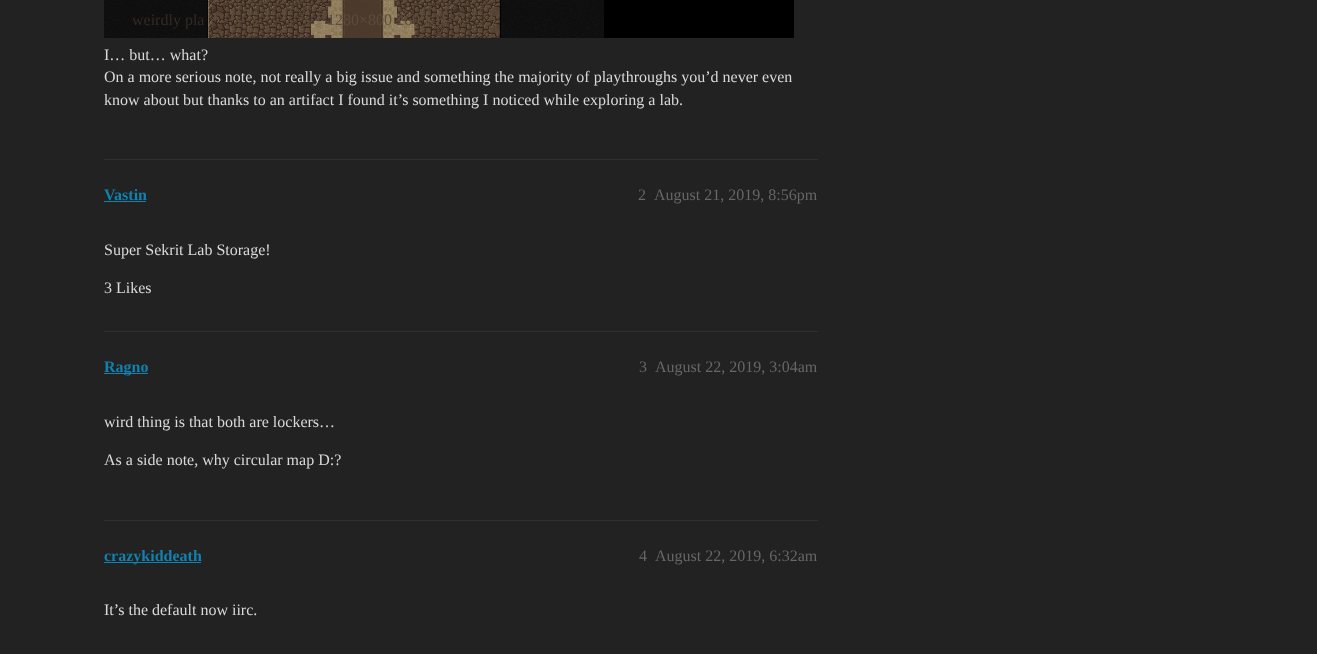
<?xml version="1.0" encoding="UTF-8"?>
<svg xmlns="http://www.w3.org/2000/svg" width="1317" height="654">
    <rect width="100%" height="100%" fill="#222222"/>
    <image x="104" y="0" width="690" height="38" href="img_01.png"/>
    <text x="132" y="25" font-family="Liberation Serif" font-size="16" fill="#342A22">weirdly pla</text>
    <text x="327" y="25" font-family="Liberation Serif" font-size="16" fill="#5D4C39">1280×800 260 KB</text>
    <text font-family="Liberation Serif" font-size="16" fill="#D9D9D9">
        <tspan x="104" y="60">I… but… what?</tspan>
        <tspan x="104" y="82">On a more serious note, not really a big issue and something the majority of playthroughs you’d never even</tspan>
        <tspan x="104" y="105">know about but thanks to an artifact I found it’s something I noticed while exploring a lab.</tspan>
    </text>
    <rect x="104" y="159" width="714" height="1" fill="#303030"/>
    <text x="104" y="200" font-family="Liberation Serif" font-size="16" font-weight="700" fill="#0F82AF">Vastin</text>
    <rect x="104" y="201" width="42" height="1" fill="#0F82AF"/>
    <text x="638" y="200" font-family="Liberation Serif" font-size="16" fill="#666666">2</text>
    <text x="654" y="200" font-family="Liberation Serif" font-size="16" fill="#666666">August 21, 2019, 8:56pm</text>
    <text x="104" y="255" font-family="Liberation Serif" font-size="16" fill="#D9D9D9">Super Sekrit Lab Storage!</text>
    <text x="104" y="293" font-family="Liberation Serif" font-size="16" fill="#D9D9D9">3 Likes</text>
    <rect x="104" y="331" width="714" height="1" fill="#303030"/>
    <rect x="104" y="373" width="44" height="1" fill="#0F82AF"/>
    <text x="104" y="372" font-family="Liberation Serif" font-size="16" font-weight="700" fill="#0F82AF">Ragno</text>
    <text x="639" y="372" font-family="Liberation Serif" font-size="16" fill="#666666">3</text>
    <text x="655" y="372" font-family="Liberation Serif" font-size="16" fill="#666666">August 22, 2019, 3:04am</text>
    <text x="104" y="427" font-family="Liberation Serif" font-size="16" fill="#D9D9D9">wird thing is that both are lockers…</text>
    <text x="104" y="465" font-family="Liberation Serif" font-size="16" fill="#D9D9D9">As a side note, why circular map D:?</text>
    <rect x="104" y="520" width="714" height="1" fill="#303030"/>
    <rect x="104" y="562" width="97" height="1" fill="#0F82AF"/>
    <text x="104" y="561" font-family="Liberation Serif" font-size="16" font-weight="700" fill="#0F82AF">crazykiddeath</text>
    <text x="639" y="561" font-family="Liberation Serif" font-size="16" fill="#666666">4</text>
    <text x="655" y="561" font-family="Liberation Serif" font-size="16" fill="#666666">August 22, 2019, 6:32am</text>
    <text x="104" y="615" font-family="Liberation Serif" font-size="16" fill="#D9D9D9">It’s the default now iirc.</text>
</svg>
